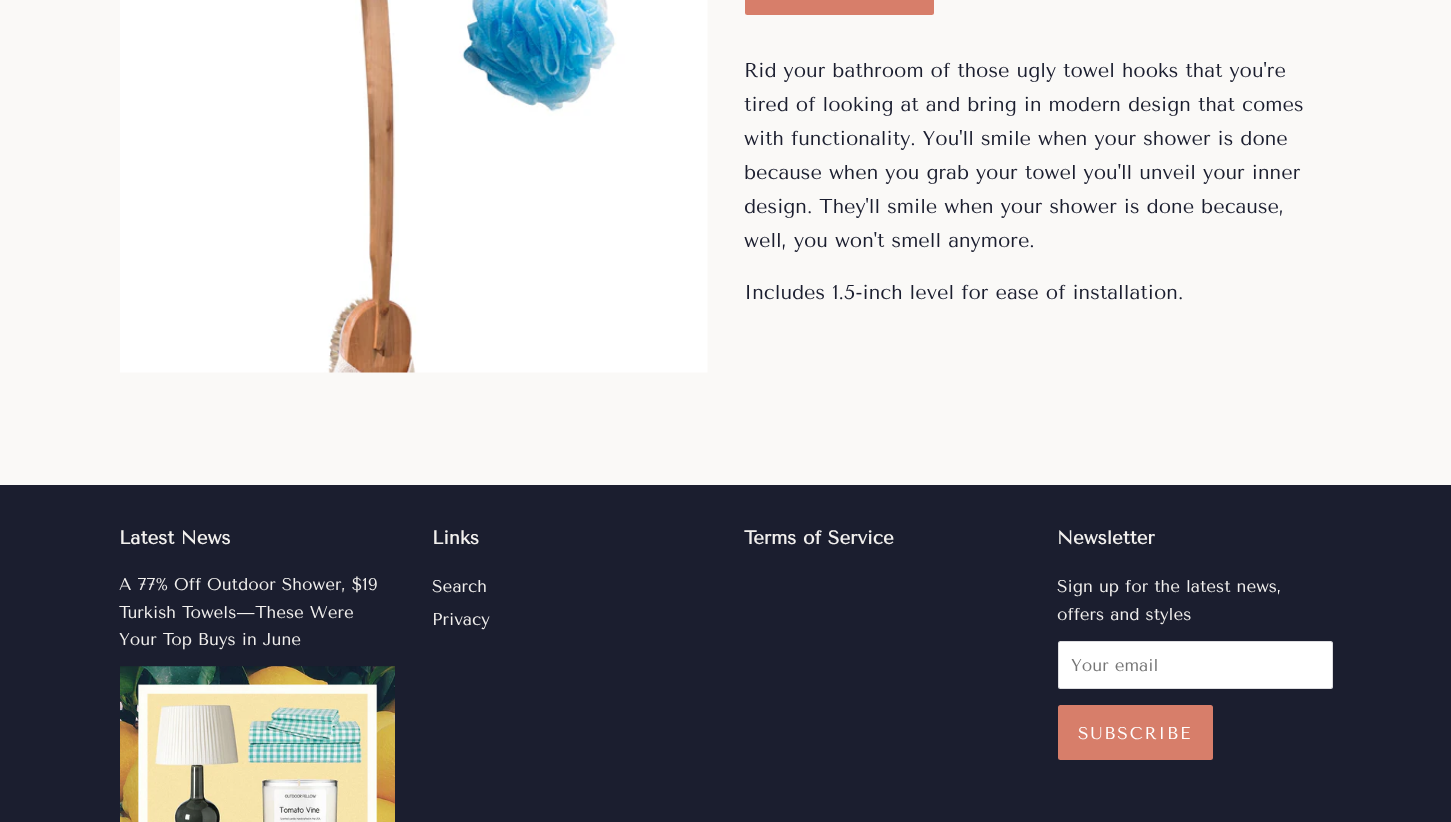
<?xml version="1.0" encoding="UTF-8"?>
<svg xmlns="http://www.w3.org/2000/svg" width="1451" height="822">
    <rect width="100%" height="100%" fill="#FAF9F7"/>
    <image x="120" y="0" width="588" height="373" href="img_01.png"/>
    <rect x="745" y="-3" width="189" height="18" rx="2.5" fill="#D77E6A"/>
    <text font-family="Tenor Sans" font-size="20" fill="#1B1E2F">
        <tspan x="744" y="77">Rid your bathroom of those ugly towel hooks that you're</tspan>
        <tspan x="744" y="111">tired of looking at and bring in modern design that comes</tspan>
        <tspan x="744" y="145">with functionality. You'll smile when your shower is done</tspan>
        <tspan x="744" y="179">because when you grab your towel you'll unveil your inner</tspan>
        <tspan x="744" y="213">design. They'll smile when your shower is done because,</tspan>
        <tspan x="744" y="247">well, you won't smell anymore.</tspan>
    </text>
    <text x="744" y="299" font-family="Tenor Sans" font-size="20" fill="#1B1E2F">Includes 1.5-inch level for ease of installation.</text>
    <rect x="0" y="485" width="1451" height="337" fill="#1B1E2F"/>
    <text x="119" y="544" font-family="Tenor Sans" font-size="18.75" font-weight="700" fill="#F2F0EE">Latest News</text>
    <text font-family="Tenor Sans" font-size="17" fill="#F2F0EE">
        <tspan x="119" y="590">A 77% Off Outdoor Shower, $19</tspan>
        <tspan x="119" y="618">Turkish Towels—These Were</tspan>
        <tspan x="119" y="645">Your Top Buys in June</tspan>
    </text>
    <image x="120" y="666" width="275" height="156" href="img_02.png"/>
    <text x="432" y="544" font-family="Tenor Sans" font-size="18.75" font-weight="700" fill="#F2F0EE">Links</text>
    <text font-family="Tenor Sans" font-size="17" fill="#F2F0EE">
        <tspan x="432" y="592">Search</tspan>
        <tspan x="432" y="625">Privacy</tspan>
    </text>
    <text x="744" y="544" font-family="Tenor Sans" font-size="18.75" font-weight="700" fill="#F2F0EE">Terms of Service</text>
    <text x="1057" y="544" font-family="Tenor Sans" font-size="18.75" font-weight="700" fill="#F2F0EE">Newsletter</text>
    <text font-family="Tenor Sans" font-size="17" fill="#F2F0EE">
        <tspan x="1057" y="592">Sign up for the latest news,</tspan>
        <tspan x="1057" y="620">offers and styles</tspan>
    </text>
    <rect x="1058" y="641" width="275" height="48" rx="2.5" fill="#FFFFFF"/>
    <rect x="1058.5" y="641.5" width="274" height="47" rx="2" fill="none" stroke="#1B1E2F" stroke-opacity="0.15"/>
    <text x="1071" y="671" font-family="Tenor Sans" font-size="17" fill="#757575">Your email</text>
    <rect x="1058" y="705" width="155" height="55" rx="2.5" fill="#D77E6A"/>
    <text x="1078" y="739" font-family="Tenor Sans" font-size="17" letter-spacing="1.75" fill="#FFFFFF">SUBSCRIBE</text>
</svg>
